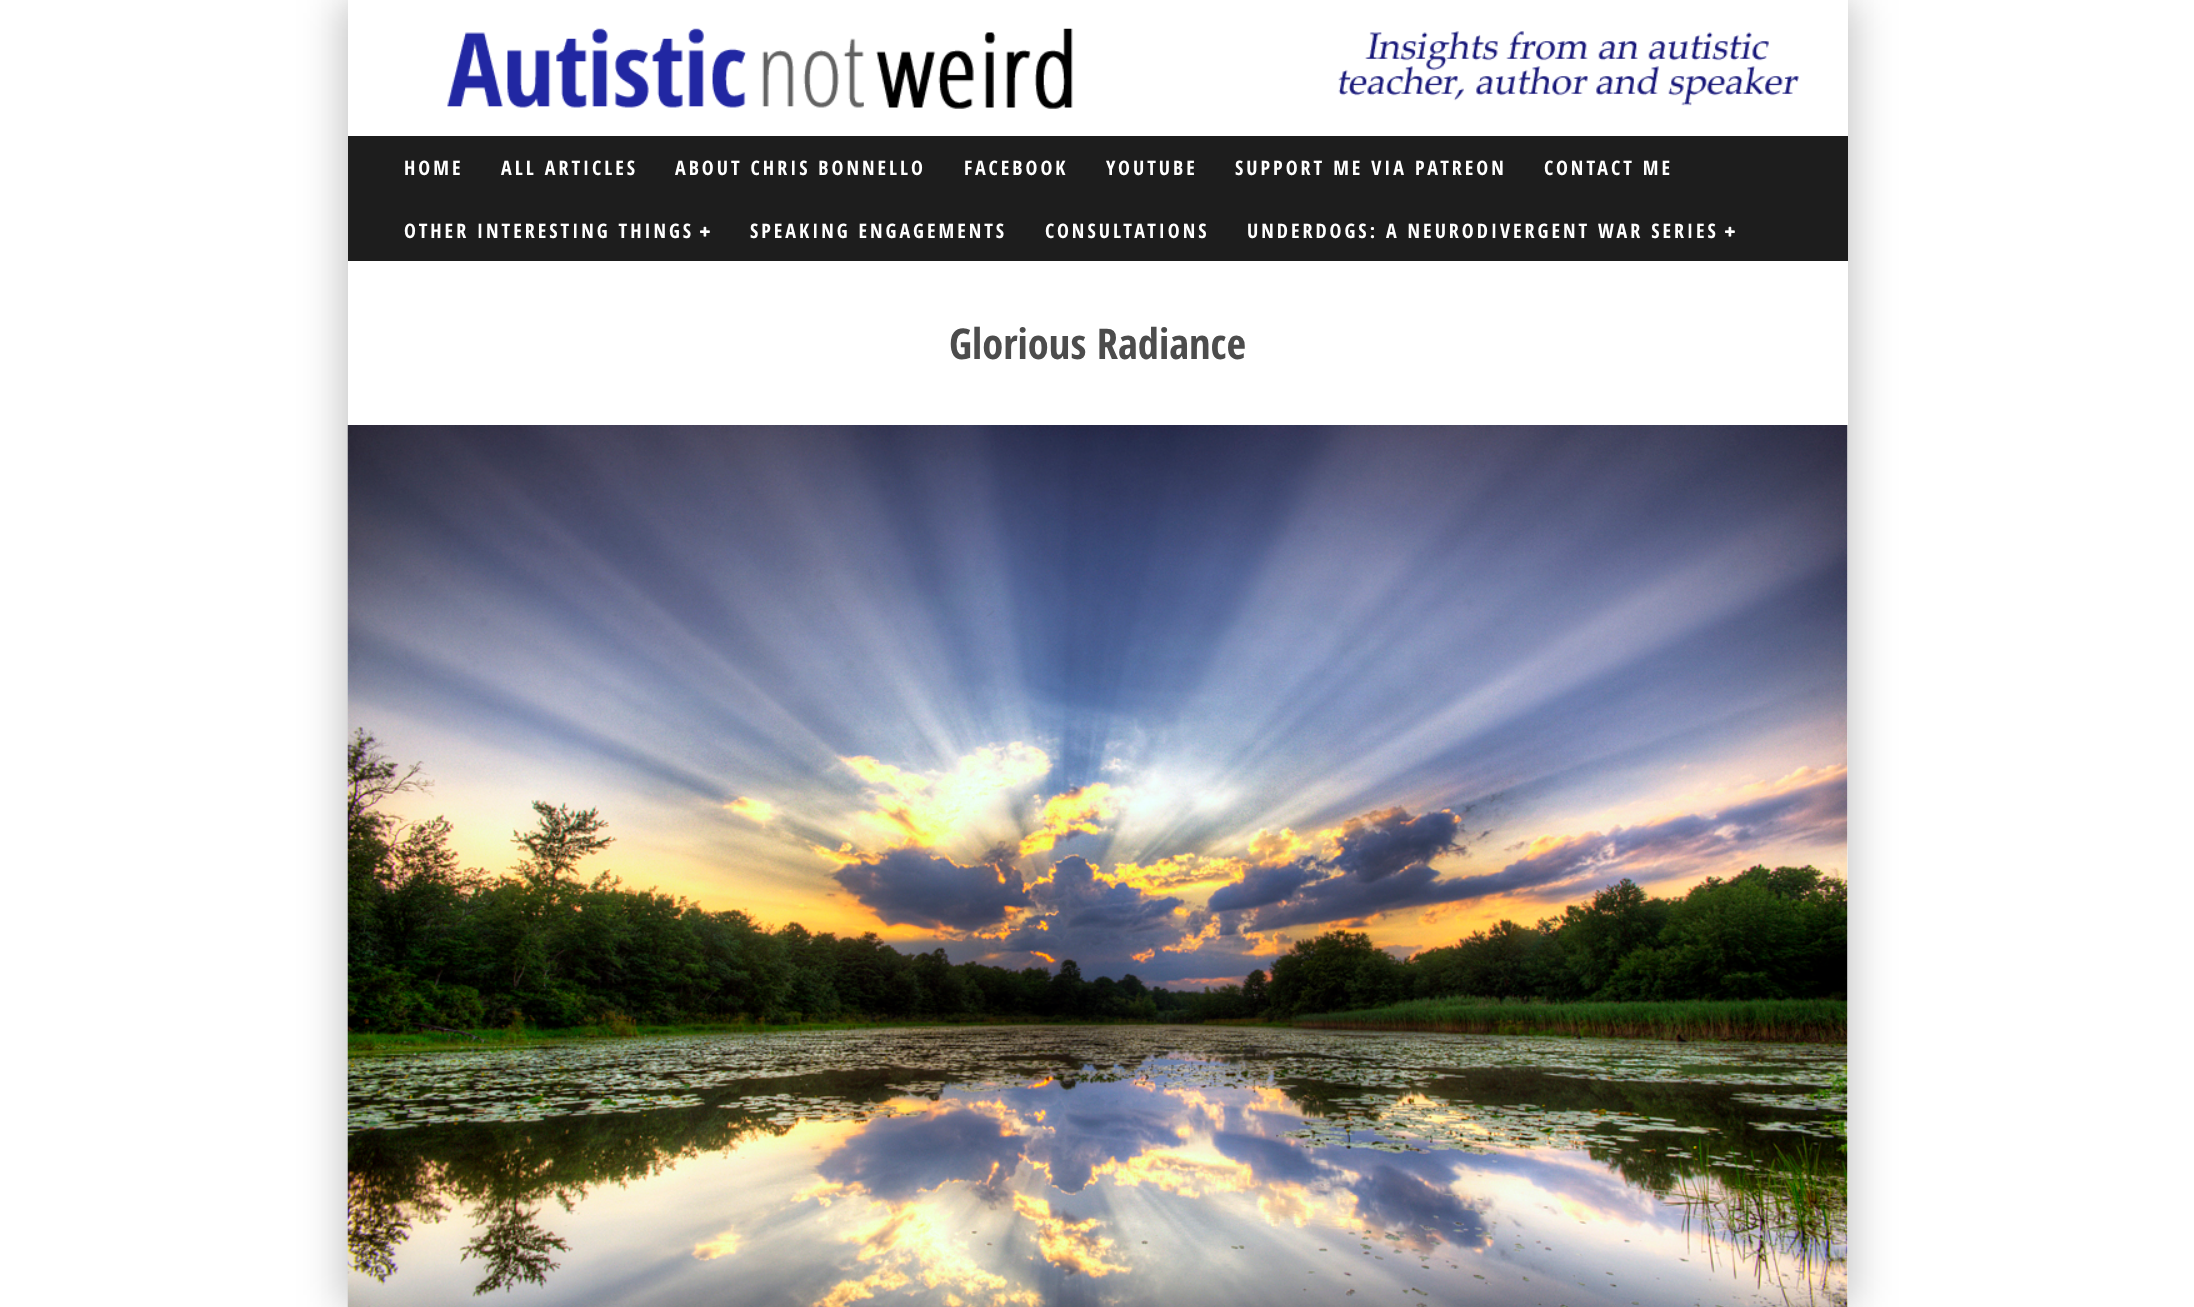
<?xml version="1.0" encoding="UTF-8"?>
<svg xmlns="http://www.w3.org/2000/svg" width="2194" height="1307">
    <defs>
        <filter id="blur1" x="-50%" y="-200%" width="200%" height="500%"><feGaussianBlur stdDeviation="19"/></filter>
    </defs>
    <rect width="100%" height="100%" fill="#FFFFFF"/>
    <rect x="335" y="0" width="1500" height="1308" fill="#000000" fill-opacity="0.15" filter="url(#blur1)"/>
    <rect x="360" y="0" width="1500" height="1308" fill="#000000" fill-opacity="0.15" filter="url(#blur1)"/>
    <rect x="348" y="0" width="1500" height="136" fill="#FFFFFF"/>
    <image x="447" y="28" width="1352" height="81" href="img_01.png"/>
    <rect x="348" y="136" width="1500" height="125" fill="#1D1D1D"/>
    <text x="404" y="175" font-family="Open Sans Condensed" font-size="20" font-weight="700" letter-spacing="3" fill="#FFFFFF">HOME</text>
    <text x="501" y="175" font-family="Open Sans Condensed" font-size="20" font-weight="700" letter-spacing="3" fill="#FFFFFF">ALL ARTICLES</text>
    <text x="675" y="175" font-family="Open Sans Condensed" font-size="20" font-weight="700" letter-spacing="3" fill="#FFFFFF">ABOUT CHRIS BONNELLO</text>
    <text x="964" y="175" font-family="Open Sans Condensed" font-size="20" font-weight="700" letter-spacing="3" fill="#FFFFFF">FACEBOOK</text>
    <text x="1106" y="175" font-family="Open Sans Condensed" font-size="20" font-weight="700" letter-spacing="3" fill="#FFFFFF">YOUTUBE</text>
    <text x="1235" y="175" font-family="Open Sans Condensed" font-size="20" font-weight="700" letter-spacing="3" fill="#FFFFFF">SUPPORT ME VIA PATREON</text>
    <text x="1544" y="175" font-family="Open Sans Condensed" font-size="20" font-weight="700" letter-spacing="3" fill="#FFFFFF">CONTACT ME</text>
    <text x="404" y="238" font-family="Open Sans Condensed" font-size="20" font-weight="700" letter-spacing="3" fill="#FFFFFF">OTHER INTERESTING THINGS</text>
    <image x="700" y="226" width="10" height="11" href="img_02.png"/>
    <text x="750" y="238" font-family="Open Sans Condensed" font-size="20" font-weight="700" letter-spacing="3" fill="#FFFFFF">SPEAKING ENGAGEMENTS</text>
    <text x="1045" y="238" font-family="Open Sans Condensed" font-size="20" font-weight="700" letter-spacing="3" fill="#FFFFFF">CONSULTATIONS</text>
    <text x="1247" y="238" font-family="Open Sans Condensed" font-size="20" font-weight="700" letter-spacing="3" fill="#FFFFFF">UNDERDOGS: A NEURODIVERGENT WAR SERIES</text>
    <image x="1725" y="226" width="10" height="11" href="img_02.png"/>
    <rect x="348" y="261" width="1500" height="164" fill="#FFFFFF"/>
    <text x="949" y="359" font-family="Open Sans Condensed" font-size="42.5" font-weight="700" fill="#4C4C4C">Glorious Radiance</text>
    <rect x="1847" y="425" width="1" height="882" fill="#EEEEEE"/>
    <image x="347" y="425" width="1501" height="882" href="img_03.png"/>
</svg>
